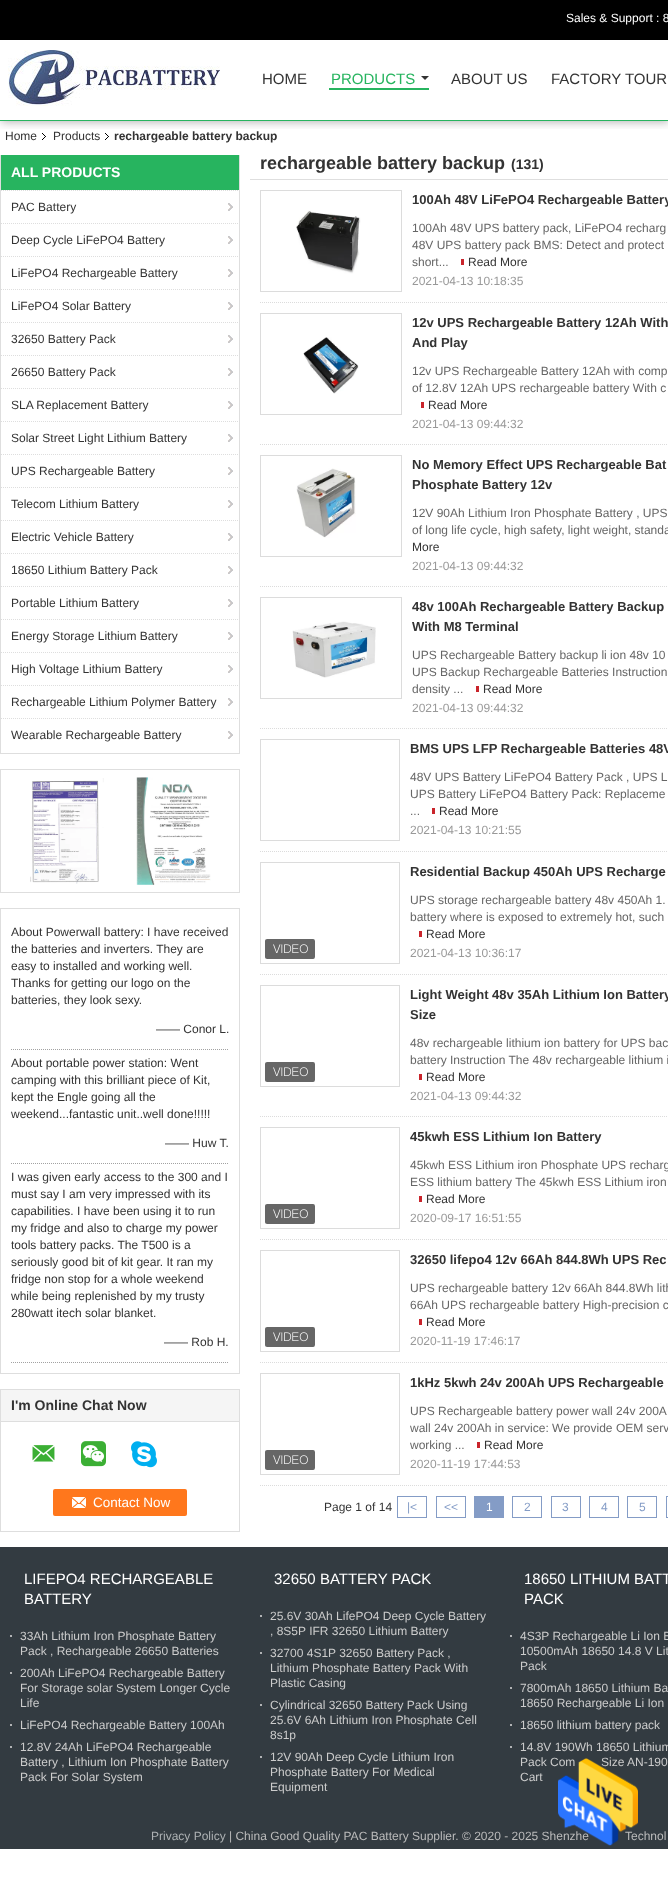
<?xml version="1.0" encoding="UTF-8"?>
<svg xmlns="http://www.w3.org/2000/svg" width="668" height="1893">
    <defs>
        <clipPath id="clip1"><rect x="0" y="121" width="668" height="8"/></clipPath>
        <filter id="blur1" x="-50%" y="-200%" width="200%" height="500%"><feGaussianBlur stdDeviation="5"/></filter>
    </defs>
    <rect width="100%" height="100%" fill="#FFFFFF"/>
    <g clip-path="url(#clip1)">
        <rect x="1" y="1" width="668" height="121" fill="#000000" fill-opacity="0.3" filter="url(#blur1)"/>
    </g>
    <rect x="0" y="120" width="668" height="1" fill="#27B45F"/>
    <rect x="0" y="0" width="668" height="40" fill="#000000"/>
    <text x="566" y="22" font-family="Liberation Sans" font-size="12" fill="#FFFFFF">Sales &amp; Support : 8</text>
    <image x="8" y="50" width="212" height="56" href="img_01.png"/>
    <text x="262" y="84" font-family="Liberation Sans" font-size="15" fill="#333333">HOME</text>
    <rect x="329" y="88" width="100" height="2" fill="#27B45F"/>
    <text x="331" y="84" font-family="Liberation Sans" font-size="15" fill="#27B45F">PRODUCTS</text>
    <path d="M 421 76 H 429 L 425 80 Z" fill="#333333"/>
    <text x="451" y="84" font-family="Liberation Sans" font-size="15" fill="#333333">ABOUT US</text>
    <text x="551" y="84" font-family="Liberation Sans" font-size="15" fill="#333333">FACTORY TOUR</text>
    <text x="5" y="140" font-family="Liberation Sans" font-size="12" fill="#333333">Home</text>
    <image x="42" y="133" width="4" height="7" href="img_02.png"/>
    <text x="53" y="140" font-family="Liberation Sans" font-size="12" fill="#333333">Products</text>
    <image x="105" y="133" width="4" height="7" href="img_02.png"/>
    <text x="114" y="140" font-family="Liberation Sans" font-size="12" font-weight="700" fill="#333333">rechargeable battery backup</text>
    <rect x="239" y="155" width="1" height="599" fill="#DEDEDE"/>
    <rect x="0" y="753" width="240" height="1" fill="#DEDEDE"/>
    <rect x="0" y="155" width="1" height="599" fill="#DEDEDE"/>
    <rect x="1" y="155" width="238" height="35" fill="#27B45F"/>
    <text x="11" y="177" font-family="Liberation Sans" font-size="14" font-weight="700" fill="#FFFFFF">ALL PRODUCTS</text>
    <image x="228" y="203" width="5" height="8" href="img_03.png"/>
    <path d="M 1 190.5 H 241" fill="none" stroke="#DEDEDE" stroke-dasharray="1 1"/>
    <text x="11" y="211" font-family="Liberation Sans" font-size="12" fill="#333333">PAC Battery</text>
    <image x="228" y="236" width="5" height="8" href="img_03.png"/>
    <path d="M 1 223.5 H 241" fill="none" stroke="#DEDEDE" stroke-dasharray="1 1"/>
    <text x="11" y="244" font-family="Liberation Sans" font-size="12" fill="#333333">Deep Cycle LiFePO4 Battery</text>
    <image x="228" y="269" width="5" height="8" href="img_03.png"/>
    <path d="M 1 256.5 H 241" fill="none" stroke="#DEDEDE" stroke-dasharray="1 1"/>
    <text x="11" y="277" font-family="Liberation Sans" font-size="12" fill="#333333">LiFePO4 Rechargeable Battery</text>
    <image x="228" y="302" width="5" height="8" href="img_03.png"/>
    <path d="M 1 289.5 H 241" fill="none" stroke="#DEDEDE" stroke-dasharray="1 1"/>
    <text x="11" y="310" font-family="Liberation Sans" font-size="12" fill="#333333">LiFePO4 Solar Battery</text>
    <image x="228" y="335" width="5" height="8" href="img_03.png"/>
    <path d="M 1 322.5 H 241" fill="none" stroke="#DEDEDE" stroke-dasharray="1 1"/>
    <text x="11" y="343" font-family="Liberation Sans" font-size="12" fill="#333333">32650 Battery Pack</text>
    <image x="228" y="368" width="5" height="8" href="img_03.png"/>
    <path d="M 1 355.5 H 241" fill="none" stroke="#DEDEDE" stroke-dasharray="1 1"/>
    <text x="11" y="376" font-family="Liberation Sans" font-size="12" fill="#333333">26650 Battery Pack</text>
    <image x="228" y="401" width="5" height="8" href="img_03.png"/>
    <path d="M 1 388.5 H 241" fill="none" stroke="#DEDEDE" stroke-dasharray="1 1"/>
    <text x="11" y="409" font-family="Liberation Sans" font-size="12" fill="#333333">SLA Replacement Battery</text>
    <image x="228" y="434" width="5" height="8" href="img_03.png"/>
    <path d="M 1 421.5 H 241" fill="none" stroke="#DEDEDE" stroke-dasharray="1 1"/>
    <text x="11" y="442" font-family="Liberation Sans" font-size="12" fill="#333333">Solar Street Light Lithium Battery</text>
    <image x="228" y="467" width="5" height="8" href="img_03.png"/>
    <path d="M 1 454.5 H 241" fill="none" stroke="#DEDEDE" stroke-dasharray="1 1"/>
    <text x="11" y="475" font-family="Liberation Sans" font-size="12" fill="#333333">UPS Rechargeable Battery</text>
    <image x="228" y="500" width="5" height="8" href="img_03.png"/>
    <path d="M 1 487.5 H 241" fill="none" stroke="#DEDEDE" stroke-dasharray="1 1"/>
    <text x="11" y="508" font-family="Liberation Sans" font-size="12" fill="#333333">Telecom Lithium Battery</text>
    <image x="228" y="533" width="5" height="8" href="img_03.png"/>
    <path d="M 1 520.5 H 241" fill="none" stroke="#DEDEDE" stroke-dasharray="1 1"/>
    <text x="11" y="541" font-family="Liberation Sans" font-size="12" fill="#333333">Electric Vehicle Battery</text>
    <image x="228" y="566" width="5" height="8" href="img_03.png"/>
    <path d="M 1 553.5 H 241" fill="none" stroke="#DEDEDE" stroke-dasharray="1 1"/>
    <text x="11" y="574" font-family="Liberation Sans" font-size="12" fill="#333333">18650 Lithium Battery Pack</text>
    <image x="228" y="599" width="5" height="8" href="img_03.png"/>
    <path d="M 1 586.5 H 241" fill="none" stroke="#DEDEDE" stroke-dasharray="1 1"/>
    <text x="11" y="607" font-family="Liberation Sans" font-size="12" fill="#333333">Portable Lithium Battery</text>
    <image x="228" y="632" width="5" height="8" href="img_03.png"/>
    <path d="M 1 619.5 H 241" fill="none" stroke="#DEDEDE" stroke-dasharray="1 1"/>
    <text x="11" y="640" font-family="Liberation Sans" font-size="12" fill="#333333">Energy Storage Lithium Battery</text>
    <image x="228" y="665" width="5" height="8" href="img_03.png"/>
    <path d="M 1 652.5 H 241" fill="none" stroke="#DEDEDE" stroke-dasharray="1 1"/>
    <text x="11" y="673" font-family="Liberation Sans" font-size="12" fill="#333333">High Voltage Lithium Battery</text>
    <image x="228" y="698" width="5" height="8" href="img_03.png"/>
    <path d="M 1 685.5 H 241" fill="none" stroke="#DEDEDE" stroke-dasharray="1 1"/>
    <text x="11" y="706" font-family="Liberation Sans" font-size="12" fill="#333333">Rechargeable Lithium Polymer Battery</text>
    <image x="228" y="731" width="5" height="8" href="img_03.png"/>
    <path d="M 1 718.5 H 241" fill="none" stroke="#DEDEDE" stroke-dasharray="1 1"/>
    <text x="11" y="739" font-family="Liberation Sans" font-size="12" fill="#333333">Wearable Rechargeable Battery</text>
    <rect x="0.5" y="769.5" width="239" height="123" fill="none" stroke="#DEDEDE"/>
    <image x="30" y="778" width="74" height="106" href="img_04.png"/>
    <image x="136" y="777" width="75" height="108" href="img_05.png"/>
    <rect x="0.5" y="908.5" width="239" height="465" fill="none" stroke="#DEDEDE"/>
    <path d="M 11 1049.5 H 229" fill="none" stroke="#A2A2A2" stroke-dasharray="1 1"/>
    <text font-family="Liberation Sans" font-size="12" fill="#333333">
        <tspan x="11" y="936">About Powerwall battery: I have received</tspan>
        <tspan x="11" y="953">the batteries and inverters. They are</tspan>
        <tspan x="11" y="970">easy to installed and working well.</tspan>
        <tspan x="11" y="987">Thanks for getting our logo on the</tspan>
        <tspan x="11" y="1004">batteries, they look sexy.</tspan>
    </text>
    <text x="156" y="1033" font-family="Liberation Sans" font-size="12" fill="#333333">—— Conor L.</text>
    <path d="M 11 1163.5 H 229" fill="none" stroke="#A2A2A2" stroke-dasharray="1 1"/>
    <text font-family="Liberation Sans" font-size="12" fill="#333333">
        <tspan x="11" y="1067">About portable power station: Went</tspan>
        <tspan x="11" y="1084">camping with this brilliant piece of Kit,</tspan>
        <tspan x="11" y="1101">kept the Engle going all the</tspan>
        <tspan x="11" y="1118">weekend...fantastic unit..well done!!!!!</tspan>
    </text>
    <text x="165" y="1147" font-family="Liberation Sans" font-size="12" fill="#333333">—— Huw T.</text>
    <path d="M 11 1362.5 H 229" fill="none" stroke="#A2A2A2" stroke-dasharray="1 1"/>
    <text font-family="Liberation Sans" font-size="12" fill="#333333">
        <tspan x="11" y="1181">I was given early access to the 300 and I</tspan>
        <tspan x="11" y="1198">must say I am very impressed with its</tspan>
        <tspan x="11" y="1215">capabilities. I have been using it to run</tspan>
        <tspan x="11" y="1232">my fridge and also to charge my power</tspan>
        <tspan x="11" y="1249">tools battery packs. The T500 is a</tspan>
        <tspan x="11" y="1266">seriously good bit of kit gear. It ran my</tspan>
        <tspan x="11" y="1283">fridge non stop for a whole weekend</tspan>
        <tspan x="11" y="1300">while being replenished by my trusty</tspan>
        <tspan x="11" y="1317">280watt itech solar blanket.</tspan>
    </text>
    <text x="164" y="1346" font-family="Liberation Sans" font-size="12" fill="#333333">—— Rob H.</text>
    <rect x="0.5" y="1389.5" width="239" height="142" fill="none" stroke="#DEDEDE"/>
    <rect x="1" y="1390" width="238" height="31" fill="#F5F5F5"/>
    <rect x="1" y="1421" width="238" height="1" fill="#DEDEDE"/>
    <text x="11" y="1410" font-family="Liberation Sans" font-size="14" font-weight="700" fill="#333333">I'm Online Chat Now</text>
    <image x="32" y="1445" width="23" height="17" href="img_06.png"/>
    <image x="81" y="1441" width="25" height="26" href="img_07.png"/>
    <image x="131" y="1441" width="26" height="27" href="img_08.png"/>
    <rect x="53" y="1489" width="134" height="27" rx="2" fill="#FF771C"/>
    <image x="72" y="1497" width="14" height="11" href="img_09.png"/>
    <text x="93" y="1507" font-family="Liberation Sans" font-size="13.5" fill="#FFFFFF">Contact Now</text>
    <rect x="250" y="179" width="418" height="1" fill="#DEDEDE"/>
    <text x="260" y="169" font-family="Liberation Sans" font-size="18" font-weight="700" fill="#333333">rechargeable battery backup</text>
    <text x="511" y="169" font-family="Liberation Sans" font-size="14" font-weight="700" fill="#333333">(131)</text>
    <path d="M 260 302.5 H 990" fill="none" stroke="#DCDCDC" stroke-dasharray="1 1"/>
    <rect x="260.5" y="190.5" width="141" height="101" fill="none" stroke="#DCDCDC"/>
    <image x="296" y="210" width="65" height="64" href="img_10.png"/>
    <text x="412" y="204" font-family="Liberation Sans" font-size="13" font-weight="700" fill="#333333">100Ah 48V LiFePO4 Rechargeable Battery</text>
    <text font-family="Liberation Sans" font-size="12" fill="#666666">
        <tspan x="412" y="232">100Ah 48V UPS battery pack, LiFePO4 recharg</tspan>
        <tspan x="412" y="249">48V UPS battery pack BMS: Detect and protect</tspan>
        <tspan x="412" y="266">short...</tspan>
    </text>
    <text x="468" y="266" font-family="Liberation Sans" font-size="12" fill="#333333">Read More</text>
    <rect x="461" y="259" width="3" height="6" fill="#C9242B"/>
    <text x="412" y="285" font-family="Liberation Sans" font-size="12" fill="#999999">2021-04-13 10:18:35</text>
    <path d="M 260 444.5 H 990" fill="none" stroke="#DCDCDC" stroke-dasharray="1 1"/>
    <rect x="260.5" y="313.5" width="141" height="101" fill="none" stroke="#DCDCDC"/>
    <image x="303" y="337" width="56" height="57" href="img_11.png"/>
    <text font-family="Liberation Sans" font-size="13" font-weight="700" fill="#333333">
        <tspan x="412" y="327">12v UPS Rechargeable Battery 12Ah With</tspan>
        <tspan x="412" y="347">And Play</tspan>
    </text>
    <text font-family="Liberation Sans" font-size="12" fill="#666666">
        <tspan x="412" y="375">12v UPS Rechargeable Battery 12Ah with comp</tspan>
        <tspan x="412" y="392">of 12.8V 12Ah UPS rechargeable battery With c</tspan>
    </text>
    <text x="428" y="409" font-family="Liberation Sans" font-size="12" fill="#333333">Read More</text>
    <rect x="421" y="402" width="3" height="6" fill="#C9242B"/>
    <text x="412" y="428" font-family="Liberation Sans" font-size="12" fill="#999999">2021-04-13 09:44:32</text>
    <path d="M 260 586.5 H 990" fill="none" stroke="#DCDCDC" stroke-dasharray="1 1"/>
    <rect x="260.5" y="455.5" width="141" height="101" fill="none" stroke="#DCDCDC"/>
    <image x="296" y="468" width="60" height="70" href="img_12.png"/>
    <text font-family="Liberation Sans" font-size="13" font-weight="700" fill="#333333">
        <tspan x="412" y="469">No Memory Effect UPS Rechargeable Bat</tspan>
        <tspan x="412" y="489">Phosphate Battery 12v</tspan>
    </text>
    <text font-family="Liberation Sans" font-size="12" fill="#666666">
        <tspan x="412" y="517">12V 90Ah Lithium Iron Phosphate Battery , UPS</tspan>
        <tspan x="412" y="534">of long life cycle, high safety, light weight, standa</tspan>
    </text>
    <text x="412" y="551" font-family="Liberation Sans" font-size="12" fill="#333333">More</text>
    <text x="412" y="570" font-family="Liberation Sans" font-size="12" fill="#999999">2021-04-13 09:44:32</text>
    <path d="M 260 728.5 H 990" fill="none" stroke="#DCDCDC" stroke-dasharray="1 1"/>
    <rect x="260.5" y="597.5" width="141" height="101" fill="none" stroke="#DCDCDC"/>
    <image x="292" y="621" width="84" height="57" href="img_13.png"/>
    <text font-family="Liberation Sans" font-size="13" font-weight="700" fill="#333333">
        <tspan x="412" y="611">48v 100Ah Rechargeable Battery Backup</tspan>
        <tspan x="412" y="631">With M8 Terminal</tspan>
    </text>
    <text font-family="Liberation Sans" font-size="12" fill="#666666">
        <tspan x="412" y="659">UPS Rechargeable Battery backup li ion 48v 10</tspan>
        <tspan x="412" y="676">UPS Backup Rechargeable Batteries Instruction</tspan>
        <tspan x="412" y="693">density ...</tspan>
    </text>
    <text x="483" y="693" font-family="Liberation Sans" font-size="12" fill="#333333">Read More</text>
    <rect x="476" y="686" width="3" height="6" fill="#C9242B"/>
    <text x="412" y="712" font-family="Liberation Sans" font-size="12" fill="#999999">2021-04-13 09:44:32</text>
    <path d="M 260 851.5 H 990" fill="none" stroke="#DCDCDC" stroke-dasharray="1 1"/>
    <rect x="260.5" y="739.5" width="139" height="101" fill="none" stroke="#DCDCDC"/>
    <text x="410" y="753" font-family="Liberation Sans" font-size="13" font-weight="700" fill="#333333">BMS UPS LFP Rechargeable Batteries 48V</text>
    <text font-family="Liberation Sans" font-size="12" fill="#666666">
        <tspan x="410" y="781">48V UPS Battery LiFePO4 Battery Pack , UPS L</tspan>
        <tspan x="410" y="798">UPS Battery LiFePO4 Battery Pack: Replaceme</tspan>
        <tspan x="410" y="815">...</tspan>
    </text>
    <text x="439" y="815" font-family="Liberation Sans" font-size="12" fill="#333333">Read More</text>
    <rect x="432" y="808" width="3" height="6" fill="#C9242B"/>
    <text x="410" y="834" font-family="Liberation Sans" font-size="12" fill="#999999">2021-04-13 10:21:55</text>
    <path d="M 260 974.5 H 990" fill="none" stroke="#DCDCDC" stroke-dasharray="1 1"/>
    <rect x="260.5" y="862.5" width="139" height="101" fill="none" stroke="#DCDCDC"/>
    <image x="265" y="939" width="50" height="20" href="img_14.png"/>
    <text x="410" y="876" font-family="Liberation Sans" font-size="13" font-weight="700" fill="#333333">Residential Backup 450Ah UPS Recharge</text>
    <text font-family="Liberation Sans" font-size="12" fill="#666666">
        <tspan x="410" y="904">UPS storage rechargeable battery 48v 450Ah 1.</tspan>
        <tspan x="410" y="921">battery where is exposed to extremely hot, such</tspan>
    </text>
    <text x="426" y="938" font-family="Liberation Sans" font-size="12" fill="#333333">Read More</text>
    <rect x="419" y="931" width="3" height="6" fill="#C9242B"/>
    <text x="410" y="957" font-family="Liberation Sans" font-size="12" fill="#999999">2021-04-13 10:36:17</text>
    <path d="M 260 1116.5 H 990" fill="none" stroke="#DCDCDC" stroke-dasharray="1 1"/>
    <rect x="260.5" y="985.5" width="139" height="101" fill="none" stroke="#DCDCDC"/>
    <image x="265" y="1062" width="50" height="20" href="img_14.png"/>
    <text font-family="Liberation Sans" font-size="13" font-weight="700" fill="#333333">
        <tspan x="410" y="999">Light Weight 48v 35Ah Lithium Ion Battery</tspan>
        <tspan x="410" y="1019">Size</tspan>
    </text>
    <text font-family="Liberation Sans" font-size="12" fill="#666666">
        <tspan x="410" y="1047">48v rechargeable lithium ion battery for UPS bac</tspan>
        <tspan x="410" y="1064">battery Instruction The 48v rechargeable lithium i</tspan>
    </text>
    <text x="426" y="1081" font-family="Liberation Sans" font-size="12" fill="#333333">Read More</text>
    <rect x="419" y="1074" width="3" height="6" fill="#C9242B"/>
    <text x="410" y="1100" font-family="Liberation Sans" font-size="12" fill="#999999">2021-04-13 09:44:32</text>
    <path d="M 260 1239.5 H 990" fill="none" stroke="#DCDCDC" stroke-dasharray="1 1"/>
    <rect x="260.5" y="1127.5" width="139" height="101" fill="none" stroke="#DCDCDC"/>
    <image x="265" y="1204" width="50" height="20" href="img_14.png"/>
    <text x="410" y="1141" font-family="Liberation Sans" font-size="13" font-weight="700" fill="#333333">45kwh ESS Lithium Ion Battery</text>
    <text font-family="Liberation Sans" font-size="12" fill="#666666">
        <tspan x="410" y="1169">45kwh ESS Lithium iron Phosphate UPS recharg</tspan>
        <tspan x="410" y="1186">ESS lithium battery The 45kwh ESS Lithium iron</tspan>
    </text>
    <text x="426" y="1203" font-family="Liberation Sans" font-size="12" fill="#333333">Read More</text>
    <rect x="419" y="1196" width="3" height="6" fill="#C9242B"/>
    <text x="410" y="1222" font-family="Liberation Sans" font-size="12" fill="#999999">2020-09-17 16:51:55</text>
    <path d="M 260 1362.5 H 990" fill="none" stroke="#DCDCDC" stroke-dasharray="1 1"/>
    <rect x="260.5" y="1250.5" width="139" height="101" fill="none" stroke="#DCDCDC"/>
    <image x="265" y="1327" width="50" height="20" href="img_14.png"/>
    <text x="410" y="1264" font-family="Liberation Sans" font-size="13" font-weight="700" fill="#333333">32650 lifepo4 12v 66Ah 844.8Wh UPS Rec</text>
    <text font-family="Liberation Sans" font-size="12" fill="#666666">
        <tspan x="410" y="1292">UPS rechargeable battery 12v 66Ah 844.8Wh lith</tspan>
        <tspan x="410" y="1309">66Ah UPS rechargeable battery High-precision c</tspan>
    </text>
    <text x="426" y="1326" font-family="Liberation Sans" font-size="12" fill="#333333">Read More</text>
    <rect x="419" y="1319" width="3" height="6" fill="#C9242B"/>
    <text x="410" y="1345" font-family="Liberation Sans" font-size="12" fill="#999999">2020-11-19 17:46:17</text>
    <path d="M 260 1485.5 H 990" fill="none" stroke="#DCDCDC" stroke-dasharray="1 1"/>
    <rect x="260.5" y="1373.5" width="139" height="101" fill="none" stroke="#DCDCDC"/>
    <image x="265" y="1450" width="50" height="20" href="img_14.png"/>
    <text x="410" y="1387" font-family="Liberation Sans" font-size="13" font-weight="700" fill="#333333">1kHz 5kwh 24v 200Ah UPS Rechargeable</text>
    <text font-family="Liberation Sans" font-size="12" fill="#666666">
        <tspan x="410" y="1415">UPS Rechargeable battery power wall 24v 200A</tspan>
        <tspan x="410" y="1432">wall 24v 200Ah in service: We provide OEM serv</tspan>
        <tspan x="410" y="1449">working ...</tspan>
    </text>
    <text x="484" y="1449" font-family="Liberation Sans" font-size="12" fill="#333333">Read More</text>
    <rect x="477" y="1442" width="3" height="6" fill="#C9242B"/>
    <text x="410" y="1468" font-family="Liberation Sans" font-size="12" fill="#999999">2020-11-19 17:44:53</text>
    <text x="324" y="1511" font-family="Liberation Sans" font-size="12" fill="#333333">Page 1 of 14</text>
    <rect x="397.5" y="1496.5" width="29" height="21" fill="none" stroke="#849CC6"/>
    <text x="407" y="1511" font-family="Liberation Sans" font-size="12" fill="#849CC6">|&lt;</text>
    <rect x="436.5" y="1496.5" width="29" height="21" fill="none" stroke="#849CC6"/>
    <text x="444" y="1511" font-family="Liberation Sans" font-size="12" fill="#849CC6">&lt;&lt;</text>
    <rect x="474" y="1496" width="30" height="22" fill="#849CC6"/>
    <text x="486" y="1511" font-family="Liberation Sans" font-size="12" fill="#FFFFFF">1</text>
    <rect x="512.5" y="1496.5" width="29" height="21" fill="none" stroke="#849CC6"/>
    <text x="524" y="1511" font-family="Liberation Sans" font-size="12" fill="#849CC6">2</text>
    <rect x="551.5" y="1496.5" width="29" height="21" fill="none" stroke="#849CC6"/>
    <text x="562" y="1511" font-family="Liberation Sans" font-size="12" fill="#849CC6">3</text>
    <rect x="589.5" y="1496.5" width="29" height="21" fill="none" stroke="#849CC6"/>
    <text x="601" y="1511" font-family="Liberation Sans" font-size="12" fill="#849CC6">4</text>
    <rect x="627.5" y="1496.5" width="29" height="21" fill="none" stroke="#849CC6"/>
    <text x="639" y="1511" font-family="Liberation Sans" font-size="12" fill="#849CC6">5</text>
    <rect x="666.5" y="1496.5" width="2" height="21" fill="none" stroke="#849CC6"/>
    <rect x="0" y="1547" width="668" height="302" fill="#333B41"/>
    <text font-family="Liberation Sans" font-size="15" fill="#FFFFFF">
        <tspan x="24" y="1584">LIFEPO4 RECHARGEABLE</tspan>
        <tspan x="24" y="1604">BATTERY</tspan>
    </text>
    <circle cx="11" cy="1636" r="1" fill="#DDDDDD"/>
    <text font-family="Liberation Sans" font-size="12" fill="#CCCCCC">
        <tspan x="20" y="1640">33Ah Lithium Iron Phosphate Battery</tspan>
        <tspan x="20" y="1655">Pack , Rechargeable 26650 Batteries</tspan>
    </text>
    <circle cx="11" cy="1673" r="1" fill="#DDDDDD"/>
    <text font-family="Liberation Sans" font-size="12" fill="#CCCCCC">
        <tspan x="20" y="1677">200Ah LiFePO4 Rechargeable Battery</tspan>
        <tspan x="20" y="1692">For Storage solar System Longer Cycle</tspan>
        <tspan x="20" y="1707">Life</tspan>
    </text>
    <circle cx="11" cy="1725" r="1" fill="#DDDDDD"/>
    <text x="20" y="1729" font-family="Liberation Sans" font-size="12" fill="#CCCCCC">LiFePO4 Rechargeable Battery 100Ah</text>
    <circle cx="11" cy="1747" r="1" fill="#DDDDDD"/>
    <text font-family="Liberation Sans" font-size="12" fill="#CCCCCC">
        <tspan x="20" y="1751">12.8V 24Ah LiFePO4 Rechargeable</tspan>
        <tspan x="20" y="1766">Battery , Lithium Ion Phosphate Battery</tspan>
        <tspan x="20" y="1781">Pack For Solar System</tspan>
    </text>
    <text x="274" y="1584" font-family="Liberation Sans" font-size="15" fill="#FFFFFF">32650 BATTERY PACK</text>
    <circle cx="261" cy="1616" r="1" fill="#DDDDDD"/>
    <text font-family="Liberation Sans" font-size="12" fill="#CCCCCC">
        <tspan x="270" y="1620">25.6V 30Ah LifePO4 Deep Cycle Battery</tspan>
        <tspan x="270" y="1635">, 8S5P IFR 32650 Lithium Battery</tspan>
    </text>
    <circle cx="261" cy="1653" r="1" fill="#DDDDDD"/>
    <text font-family="Liberation Sans" font-size="12" fill="#CCCCCC">
        <tspan x="270" y="1657">32700 4S1P 32650 Battery Pack ,</tspan>
        <tspan x="270" y="1672">Lithium Phosphate Battery Pack With</tspan>
        <tspan x="270" y="1687">Plastic Casing</tspan>
    </text>
    <circle cx="261" cy="1705" r="1" fill="#DDDDDD"/>
    <text font-family="Liberation Sans" font-size="12" fill="#CCCCCC">
        <tspan x="270" y="1709">Cylindrical 32650 Battery Pack Using</tspan>
        <tspan x="270" y="1724">25.6V 6Ah Lithium Iron Phosphate Cell</tspan>
        <tspan x="270" y="1739">8s1p</tspan>
    </text>
    <circle cx="261" cy="1757" r="1" fill="#DDDDDD"/>
    <text font-family="Liberation Sans" font-size="12" fill="#CCCCCC">
        <tspan x="270" y="1761">12V 90Ah Deep Cycle Lithium Iron</tspan>
        <tspan x="270" y="1776">Phosphate Battery For Medical</tspan>
        <tspan x="270" y="1791">Equipment</tspan>
    </text>
    <text font-family="Liberation Sans" font-size="15" fill="#FFFFFF">
        <tspan x="524" y="1584">18650 LITHIUM BATT</tspan>
        <tspan x="524" y="1604">PACK</tspan>
    </text>
    <circle cx="511" cy="1636" r="1" fill="#DDDDDD"/>
    <text font-family="Liberation Sans" font-size="12" fill="#CCCCCC">
        <tspan x="520" y="1640">4S3P Rechargeable Li Ion B</tspan>
        <tspan x="520" y="1655">10500mAh 18650 14.8 V Lit</tspan>
        <tspan x="520" y="1670">Pack</tspan>
    </text>
    <circle cx="511" cy="1688" r="1" fill="#DDDDDD"/>
    <text font-family="Liberation Sans" font-size="12" fill="#CCCCCC">
        <tspan x="520" y="1692">7800mAh 18650 Lithium Ba</tspan>
        <tspan x="520" y="1707">18650 Rechargeable Li Ion</tspan>
    </text>
    <circle cx="511" cy="1725" r="1" fill="#DDDDDD"/>
    <text x="520" y="1729" font-family="Liberation Sans" font-size="12" fill="#CCCCCC">18650 lithium battery pack</text>
    <circle cx="511" cy="1747" r="1" fill="#DDDDDD"/>
    <text font-family="Liberation Sans" font-size="12" fill="#CCCCCC">
        <tspan x="520" y="1751">14.8V 190Wh 18650 Lithium</tspan>
        <tspan x="520" y="1766">Pack Com</tspan>
    </text>
    <text x="601" y="1766" font-family="Liberation Sans" font-size="12" fill="#CCCCCC">Size AN-190</text>
    <text x="520" y="1781" font-family="Liberation Sans" font-size="12" fill="#CCCCCC">Cart</text>
    <text x="151" y="1840" font-family="Liberation Sans" font-size="12" fill="#ADB1B3">Privacy Policy</text>
    <text x="229" y="1840" font-family="Liberation Sans" font-size="12" fill="#BBBBBB">| China Good Quality PAC Battery Supplier. © 2020 - 2025 Shenzhe</text>
    <text x="625" y="1840" font-family="Liberation Sans" font-size="12" fill="#BBBBBB">Technol</text>
    <image x="558" y="1758" width="80" height="88" href="img_15.png"/>
</svg>
